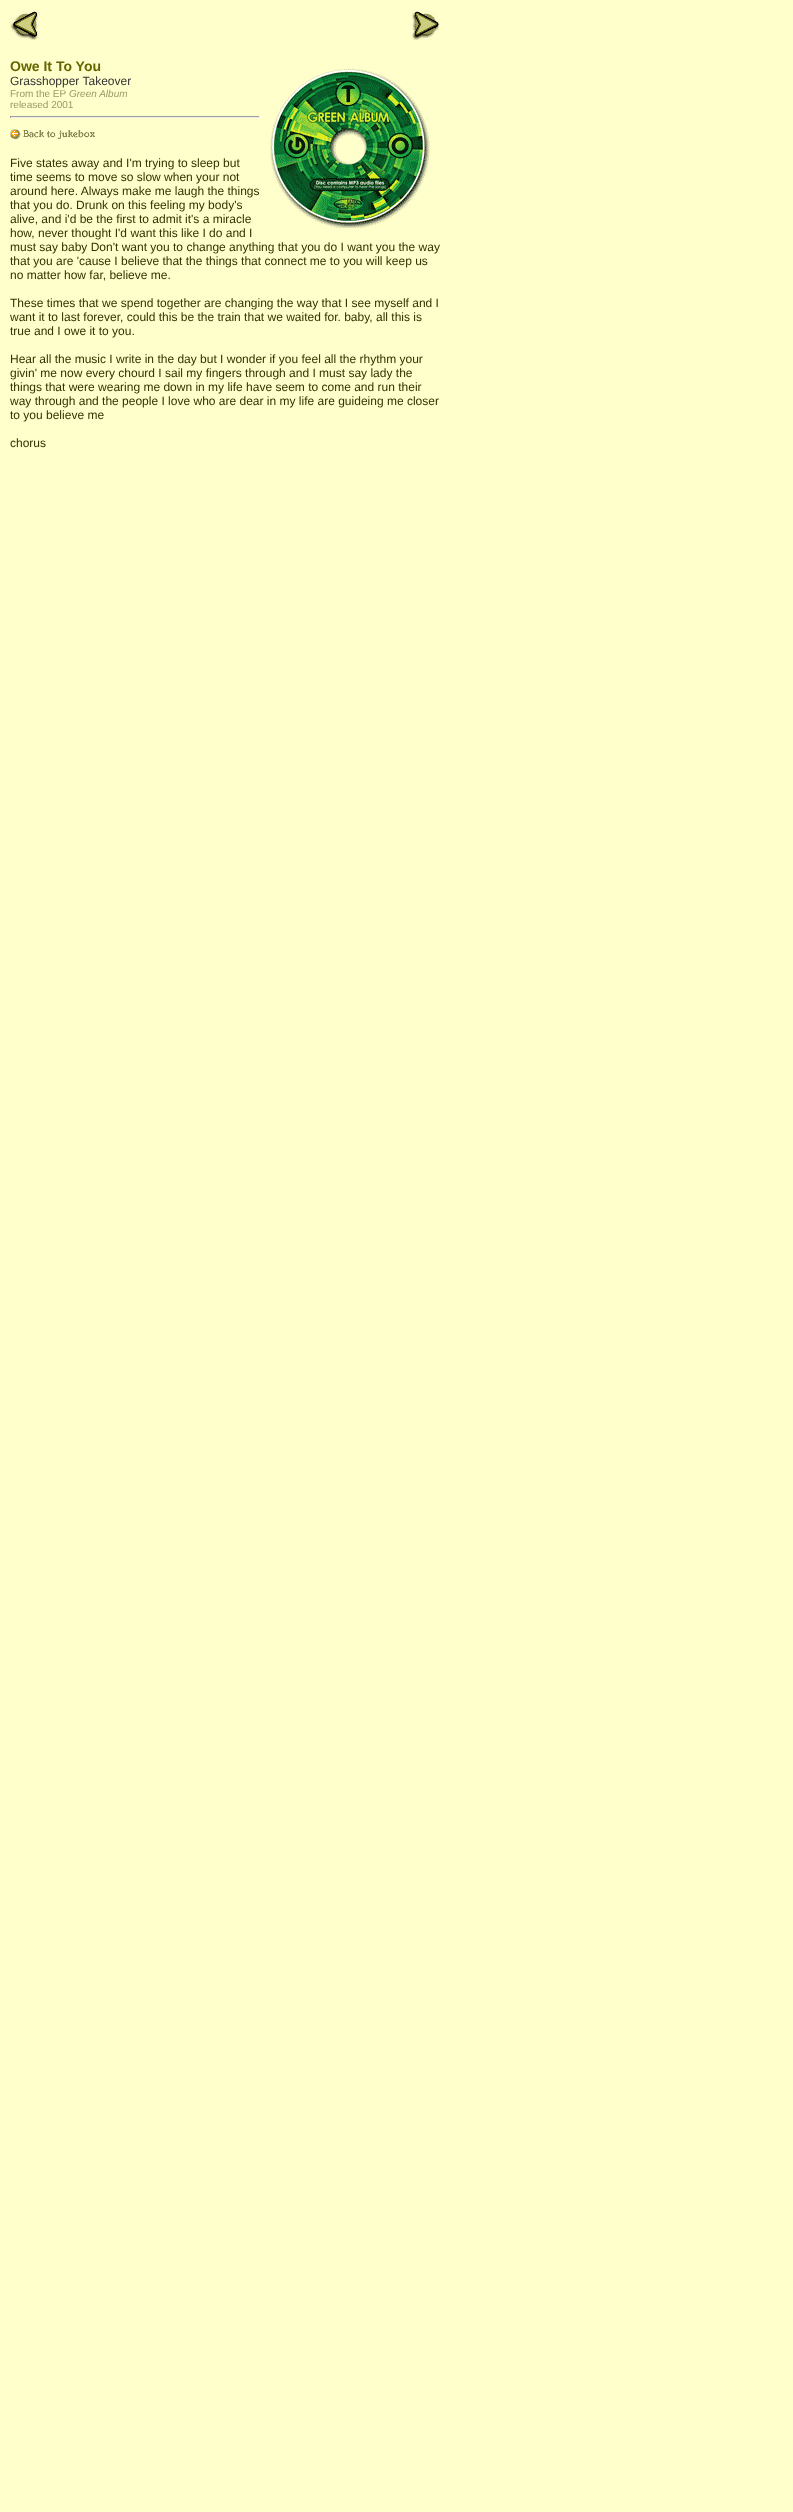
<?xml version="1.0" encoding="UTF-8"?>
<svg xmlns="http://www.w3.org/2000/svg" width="793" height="2512">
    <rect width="100%" height="100%" fill="#FFFFCC"/>
    <image x="10" y="10" width="30" height="30" href="img_01.png"/>
    <image x="412" y="11" width="28" height="29" href="img_02.png"/>
    <text x="10" y="71" font-family="Liberation Sans" font-size="14" font-weight="700" fill="#666600">Owe It To You</text>
    <text x="10" y="85" font-family="Liberation Sans" font-size="12" fill="#333333">Grasshopper Takeover</text>
    <image x="270" y="68" width="160" height="160" href="img_03.png"/>
    <text x="10" y="97" font-family="Liberation Sans" font-size="10" fill="#999966">From the EP</text>
    <text x="69" y="97" font-family="Liberation Sans" font-size="10" font-style="italic" fill="#999966">Green Album</text>
    <text x="10" y="108" font-family="Liberation Sans" font-size="10" fill="#999966">released 2001</text>
    <rect x="10" y="116" width="250" height="1" fill="#9F9F9F"/>
    <rect x="259" y="116" width="1" height="2" fill="#EEEEEE"/>
    <rect x="10" y="117" width="250" height="1" fill="#EEEEEE"/>
    <rect x="10" y="116" width="1" height="2" fill="#9F9F9F"/>
    <image x="10" y="129" width="85" height="10" href="img_04.png"/>
    <text font-family="Liberation Sans" font-size="12" fill="#333300">
        <tspan x="10" y="167">Five states away and I'm trying to sleep but</tspan>
        <tspan x="10" y="181">time seems to move so slow when your not</tspan>
        <tspan x="10" y="195">around here. Always make me laugh the things</tspan>
        <tspan x="10" y="209">that you do. Drunk on this feeling my body's</tspan>
        <tspan x="10" y="223">alive, and i'd be the first to admit it's a miracle</tspan>
        <tspan x="10" y="237">how, never thought I'd want this like I do and I</tspan>
        <tspan x="10" y="251">must say baby Don't want you to change anything that you do I want you the way</tspan>
        <tspan x="10" y="265">that you are 'cause I believe that the things that connect me to you will keep us</tspan>
        <tspan x="10" y="279">no matter how far, believe me.</tspan>
    </text>
    <text font-family="Liberation Sans" font-size="12" fill="#333300">
        <tspan x="10" y="307">These times that we spend together are changing the way that I see myself and I</tspan>
        <tspan x="10" y="321">want it to last forever, could this be the train that we waited for. baby, all this is</tspan>
        <tspan x="10" y="335">true and I owe it to you.</tspan>
    </text>
    <text font-family="Liberation Sans" font-size="12" fill="#333300">
        <tspan x="10" y="363">Hear all the music I write in the day but I wonder if you feel all the rhythm your</tspan>
        <tspan x="10" y="377">givin' me now every chourd I sail my fingers through and I must say lady the</tspan>
        <tspan x="10" y="391">things that were wearing me down in my life have seem to come and run their</tspan>
        <tspan x="10" y="405">way through and the people I love who are dear in my life are guideing me closer</tspan>
        <tspan x="10" y="419">to you believe me</tspan>
    </text>
    <text x="10" y="447" font-family="Liberation Sans" font-size="12" fill="#333300">chorus</text>
</svg>
